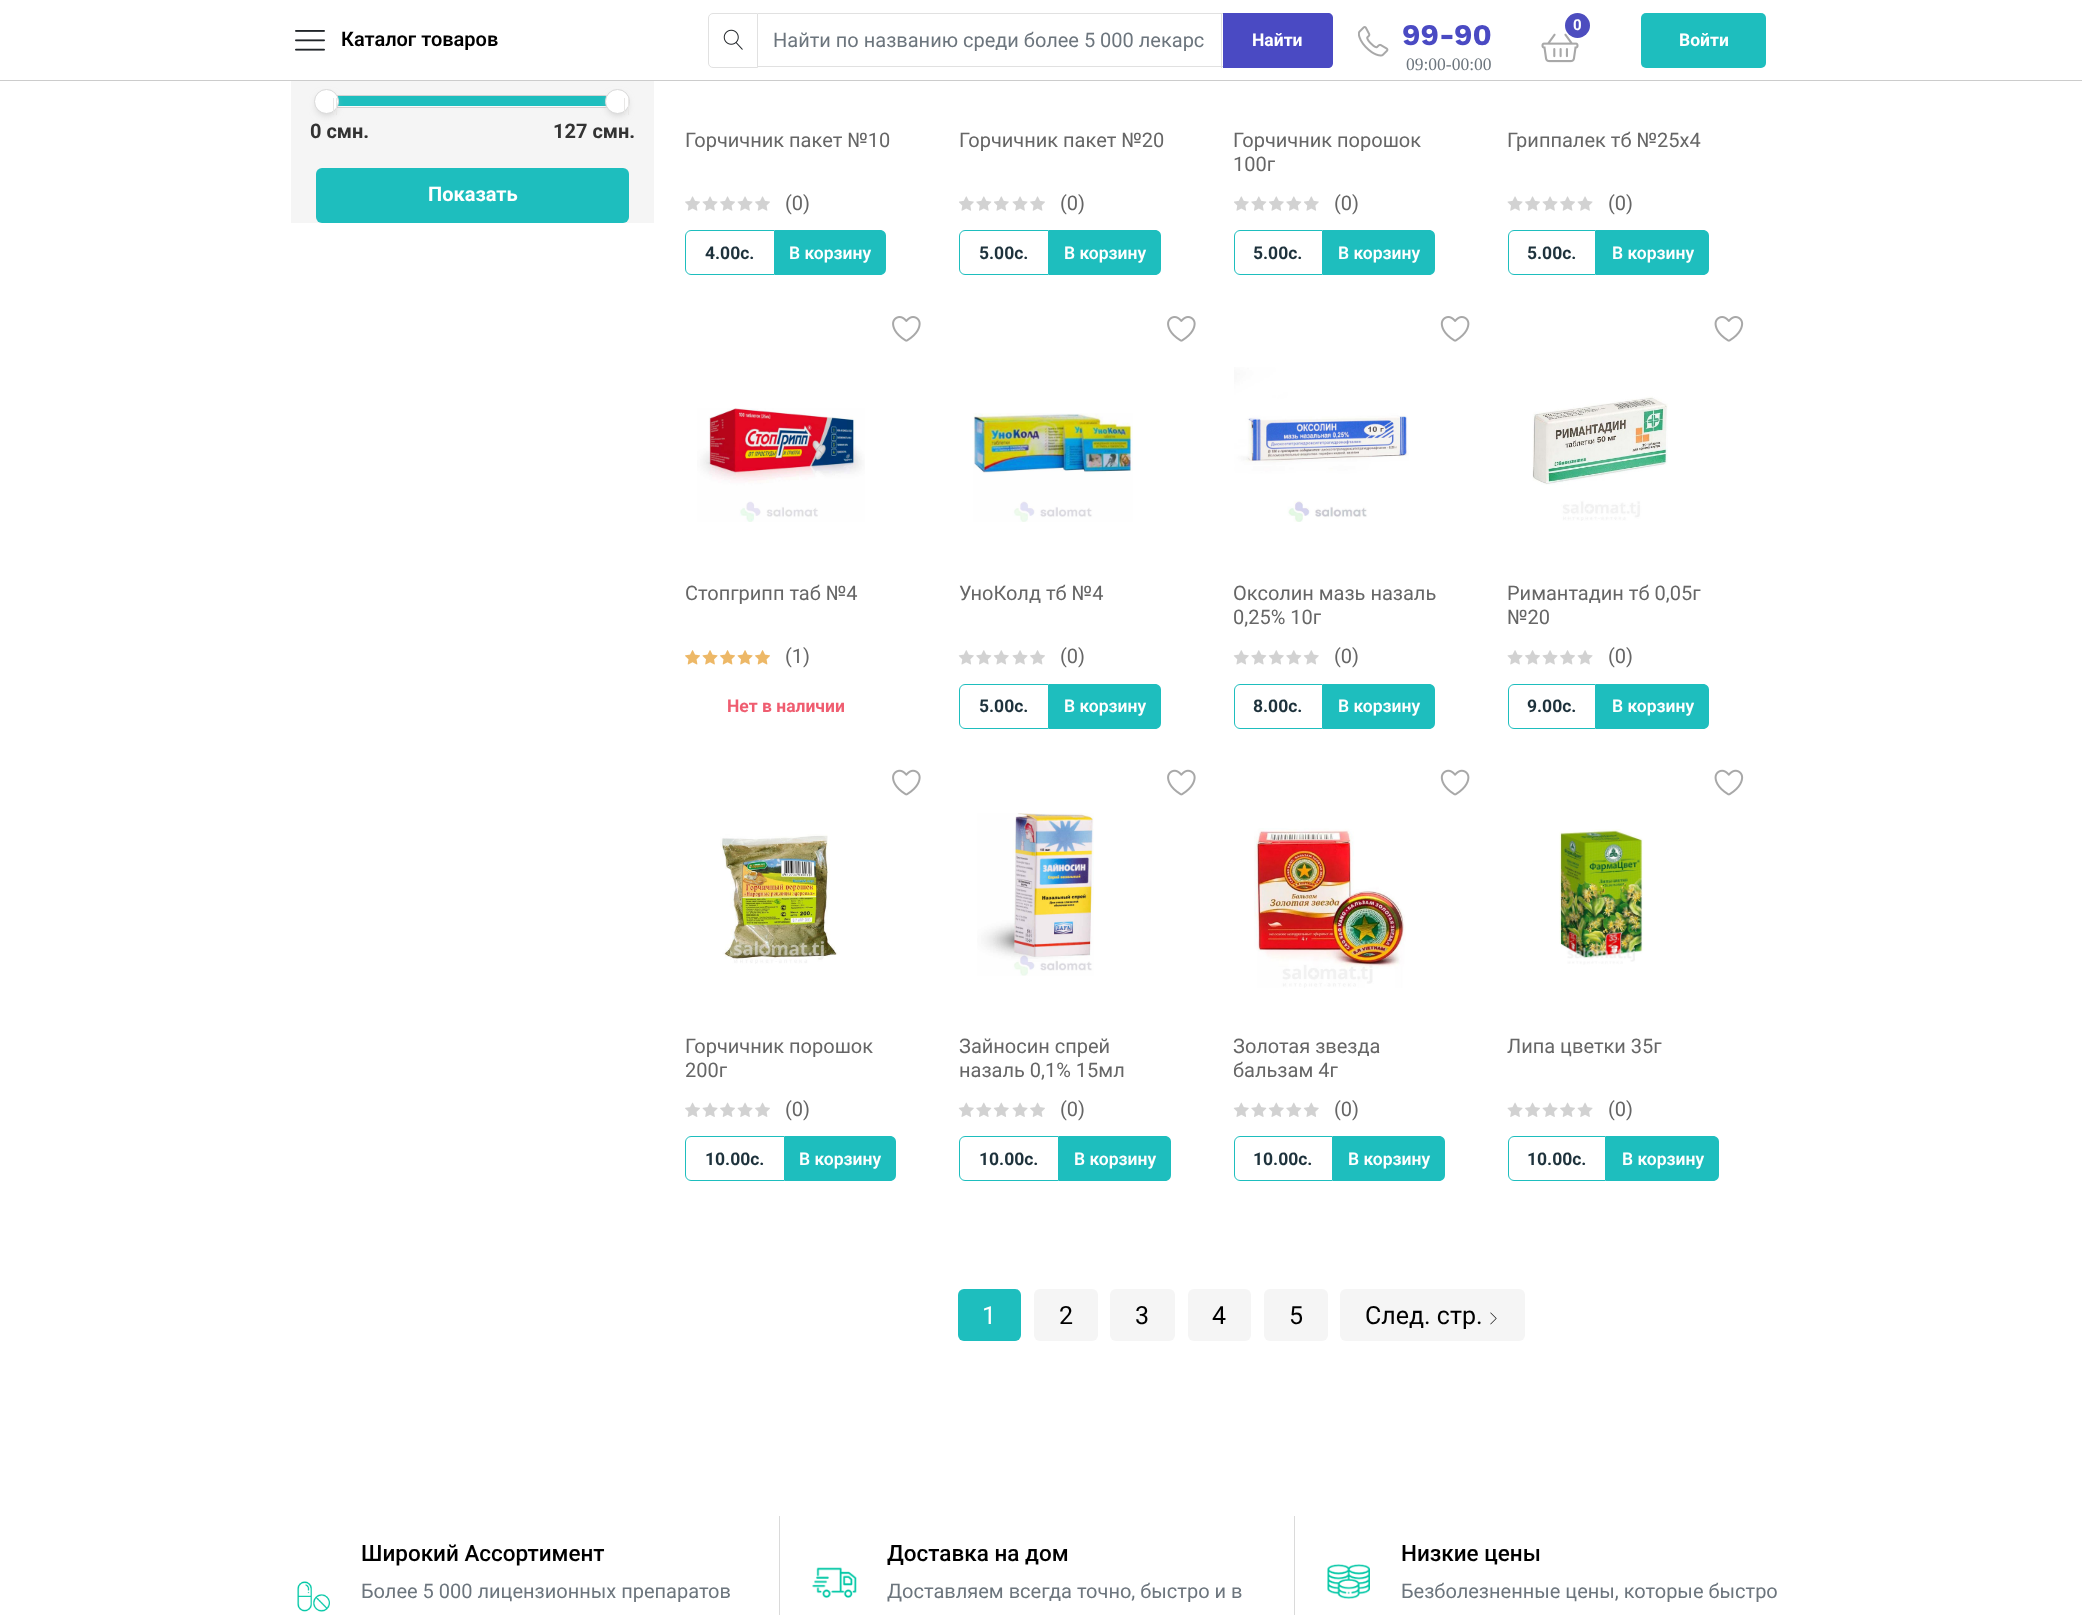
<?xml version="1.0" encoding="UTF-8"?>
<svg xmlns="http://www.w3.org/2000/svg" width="2082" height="1615">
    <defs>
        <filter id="blur1" x="-50%" y="-200%" width="200%" height="500%"><feGaussianBlur stdDeviation="4"/></filter>
    </defs>
    <rect width="100%" height="100%" fill="#FFFFFF"/>
    <rect x="0" y="80" width="2082" height="1" fill="#CCCCCC"/>
    <image x="295" y="30" width="30" height="21" href="img_01.png"/>
    <text x="341" y="46" font-family="Roboto" font-size="20" font-weight="600" fill="#000000">Каталог товаров</text>
    <path d="M 713 13.5 H 757.5 V 67.5 H 713 C 710.5 67.5 708.5 65.5 708.5 63 V 18 C 708.5 15.5 710.5 13.5 713 13.5 Z" fill="none" stroke="#E1E1E1"/>
    <image x="723" y="29" width="20" height="21" href="img_02.png"/>
    <rect x="758" y="13" width="465" height="1" fill="#E1E1E1"/>
    <rect x="1221" y="13" width="1" height="55" fill="#E1E1E1"/>
    <rect x="758" y="66" width="465" height="1" fill="#E1E1E1"/>
    <text x="773" y="47" font-family="Roboto" font-size="20" fill="#6C757D">Найти по названию среди более 5 000 лекарс</text>
    <path d="M 1223 13 H 1328 C 1331 13 1333 15 1333 18 V 63 C 1333 66 1331 68 1328 68 H 1223 Z" fill="#4A4AC3"/>
    <text x="1252" y="46" font-family="Roboto" font-size="17.5" font-weight="700" fill="#FFFFFF">Найти</text>
    <image x="1358" y="26" width="31" height="31" href="img_03.png"/>
    <text x="1402" y="45" font-family="Work Sans" font-size="30" font-weight="700" fill="#4A4AC3">99-90</text>
    <text x="1406" y="70" font-family="Liberation Serif" font-size="17.5" fill="#6C757D">09:00-00:00</text>
    <image x="1541" y="33" width="38" height="30" href="img_04.png"/>
    <circle cx="1577.5" cy="25.5" r="12.5" fill="#4D4DBF"/>
    <text x="1573" y="30" font-family="Roboto" font-size="15" font-weight="700" fill="#FFFFFF">0</text>
    <rect x="1641" y="13" width="125" height="55" rx="5" fill="#1EBEBE"/>
    <text x="1679" y="46" font-family="Roboto" font-size="17.5" font-weight="700" fill="#FFFFFF">Войти</text>
    <rect x="291" y="81" width="363" height="142" fill="#F5F5F5"/>
    <rect x="316.5" y="95.5" width="293" height="12" rx="4.5" fill="#FAFAFA" stroke="#D3D3D3"/>
    <rect x="318" y="96" width="291" height="10" rx="4" fill="#1EBEBE"/>
    <rect x="318" y="96" width="17" height="18" rx="8.5" fill="#BBBBBB" filter="url(#blur1)"/>
    <circle cx="326.5" cy="101.5" r="12" fill="#FFFFFF" stroke="#D9D9D9"/>
    <rect x="333" y="98" width="1" height="17" fill="#E8E7E6"/>
    <rect x="336" y="98" width="1" height="17" fill="#E8E7E6"/>
    <rect x="609" y="96" width="17" height="18" rx="8.5" fill="#BBBBBB" filter="url(#blur1)"/>
    <circle cx="617.5" cy="101.5" r="12" fill="#FFFFFF" stroke="#D9D9D9"/>
    <rect x="624" y="98" width="1" height="17" fill="#E8E7E6"/>
    <rect x="628" y="98" width="1" height="17" fill="#E8E7E6"/>
    <text x="310" y="138" font-family="Roboto" font-size="20" font-weight="700" fill="#333333">0 смн.</text>
    <text x="553" y="138" font-family="Roboto" font-size="20" font-weight="700" fill="#333333">127 смн.</text>
    <rect x="316" y="168" width="313" height="55" rx="6" fill="#1EBEBE"/>
    <text x="428" y="201" font-family="Roboto" font-size="20" font-weight="700" fill="#FFFFFF">Показать</text>
    <text x="685" y="147" font-family="Roboto" font-size="20" fill="#666666">Горчичник пакет №10</text>
    <image x="685" y="196" width="15" height="15" href="img_05.png"/>
    <image x="702" y="196" width="16" height="15" href="img_06.png"/>
    <image x="720" y="196" width="15" height="15" href="img_05.png"/>
    <image x="737" y="196" width="16" height="15" href="img_06.png"/>
    <image x="755" y="196" width="15" height="15" href="img_05.png"/>
    <text x="785" y="210" font-family="Roboto" font-size="20" fill="#666666">(0)</text>
    <path d="M 691 230.5 H 774.5 V 274.5 H 691 C 688 274.5 685.5 272 685.5 269 V 236 C 685.5 233 688 230.5 691 230.5 Z" fill="none" stroke="#1EBEBE"/>
    <text x="705" y="259" font-family="Roboto" font-size="17.5" font-weight="700" fill="#1E323C">4.00c.</text>
    <path d="M 775 230 H 880 C 883.5 230 886 232.5 886 236 V 269 C 886 272.5 883.5 275 880 275 H 775 Z" fill="#1EBEBE"/>
    <text x="789" y="259" font-family="Roboto" font-size="17.5" font-weight="600" fill="#FFFFFF">В корзину</text>
    <text x="959" y="147" font-family="Roboto" font-size="20" fill="#666666">Горчичник пакет №20</text>
    <image x="959" y="196" width="15" height="15" href="img_07.png"/>
    <image x="976" y="196" width="16" height="15" href="img_08.png"/>
    <image x="994" y="196" width="15" height="15" href="img_07.png"/>
    <image x="1012" y="196" width="16" height="15" href="img_06.png"/>
    <image x="1030" y="196" width="15" height="15" href="img_05.png"/>
    <text x="1060" y="210" font-family="Roboto" font-size="20" fill="#666666">(0)</text>
    <path d="M 965 230.5 H 1048.5 V 274.5 H 965 C 962 274.5 959.5 272 959.5 269 V 236 C 959.5 233 962 230.5 965 230.5 Z" fill="none" stroke="#1EBEBE"/>
    <text x="979" y="259" font-family="Roboto" font-size="17.5" font-weight="700" fill="#1E323C">5.00c.</text>
    <path d="M 1049 230 H 1155 C 1158.5 230 1161 232.5 1161 236 V 269 C 1161 272.5 1158.5 275 1155 275 H 1049 Z" fill="#1EBEBE"/>
    <text x="1064" y="259" font-family="Roboto" font-size="17.5" font-weight="600" fill="#FFFFFF">В корзину</text>
    <text font-family="Roboto" font-size="20" fill="#666666">
        <tspan x="1233" y="147">Горчичник порошок</tspan>
        <tspan x="1233" y="171">100г</tspan>
    </text>
    <image x="1234" y="196" width="15" height="15" href="img_07.png"/>
    <image x="1251" y="196" width="16" height="15" href="img_08.png"/>
    <image x="1269" y="196" width="15" height="15" href="img_07.png"/>
    <image x="1286" y="196" width="16" height="15" href="img_08.png"/>
    <image x="1304" y="196" width="15" height="15" href="img_07.png"/>
    <text x="1334" y="210" font-family="Roboto" font-size="20" fill="#666666">(0)</text>
    <path d="M 1240 230.5 H 1322.5 V 274.5 H 1240 C 1237 274.5 1234.5 272 1234.5 269 V 236 C 1234.5 233 1237 230.5 1240 230.5 Z" fill="none" stroke="#1EBEBE"/>
    <text x="1253" y="259" font-family="Roboto" font-size="17.5" font-weight="700" fill="#1E323C">5.00c.</text>
    <path d="M 1323 230 H 1429 C 1432.5 230 1435 232.5 1435 236 V 269 C 1435 272.5 1432.5 275 1429 275 H 1323 Z" fill="#1EBEBE"/>
    <text x="1338" y="259" font-family="Roboto" font-size="17.5" font-weight="600" fill="#FFFFFF">В корзину</text>
    <text x="1507" y="147" font-family="Roboto" font-size="20" fill="#666666">Гриппалек тб №25х4</text>
    <image x="1507" y="196" width="16" height="15" href="img_06.png"/>
    <image x="1525" y="196" width="15" height="15" href="img_05.png"/>
    <image x="1542" y="196" width="16" height="15" href="img_06.png"/>
    <image x="1560" y="196" width="15" height="15" href="img_05.png"/>
    <image x="1577" y="196" width="16" height="15" href="img_06.png"/>
    <text x="1608" y="210" font-family="Roboto" font-size="20" fill="#666666">(0)</text>
    <path d="M 1514 230.5 H 1595.5 V 274.5 H 1514 C 1511 274.5 1508.5 272 1508.5 269 V 236 C 1508.5 233 1511 230.5 1514 230.5 Z" fill="none" stroke="#1EBEBE"/>
    <text x="1527" y="259" font-family="Roboto" font-size="17.5" font-weight="700" fill="#1E323C">5.00c.</text>
    <path d="M 1596 230 H 1703 C 1706.5 230 1709 232.5 1709 236 V 269 C 1709 272.5 1706.5 275 1703 275 H 1596 Z" fill="#1EBEBE"/>
    <text x="1612" y="259" font-family="Roboto" font-size="17.5" font-weight="600" fill="#FFFFFF">В корзину</text>
    <image x="892" y="316" width="29" height="26" href="img_09.png"/>
    <image x="697" y="408" width="168" height="114" href="img_10.png"/>
    <text x="685" y="600" font-family="Roboto" font-size="20" fill="#666666">Стопгрипп таб №4</text>
    <image x="685" y="650" width="15" height="15" href="img_11.png"/>
    <image x="702" y="650" width="16" height="15" href="img_12.png"/>
    <image x="720" y="650" width="15" height="15" href="img_11.png"/>
    <image x="737" y="650" width="16" height="15" href="img_12.png"/>
    <image x="755" y="650" width="15" height="15" href="img_11.png"/>
    <text x="785" y="663" font-family="Roboto" font-size="20" fill="#666666">(1)</text>
    <text x="727" y="712" font-family="Roboto" font-size="17.5" font-weight="700" fill="#EF5D70">Нет в наличии</text>
    <image x="1167" y="316" width="29" height="26" href="img_09.png"/>
    <image x="973" y="413" width="160" height="109" href="img_13.png"/>
    <text x="959" y="600" font-family="Roboto" font-size="20" fill="#666666">УноКолд тб №4</text>
    <image x="958" y="650" width="16" height="15" href="img_14.png"/>
    <image x="976" y="650" width="16" height="15" href="img_15.png"/>
    <image x="993" y="650" width="16" height="15" href="img_14.png"/>
    <image x="1012" y="650" width="16" height="15" href="img_16.png"/>
    <image x="1030" y="650" width="15" height="15" href="img_17.png"/>
    <text x="1060" y="663" font-family="Roboto" font-size="20" fill="#666666">(0)</text>
    <path d="M 965 684.5 H 1048.5 V 728.5 H 965 C 962 728.5 959.5 726 959.5 723 V 690 C 959.5 687 962 684.5 965 684.5 Z" fill="none" stroke="#1EBEBE"/>
    <text x="979" y="712" font-family="Roboto" font-size="17.5" font-weight="700" fill="#1E323C">5.00c.</text>
    <path d="M 1049 684 H 1155 C 1158.5 684 1161 686.5 1161 690 V 723 C 1161 726.5 1158.5 729 1155 729 H 1049 Z" fill="#1EBEBE"/>
    <text x="1064" y="712" font-family="Roboto" font-size="17.5" font-weight="600" fill="#FFFFFF">В корзину</text>
    <image x="1440" y="316" width="30" height="26" href="img_18.png"/>
    <image x="1234" y="367" width="175" height="155" href="img_19.png"/>
    <text font-family="Roboto" font-size="20" fill="#666666">
        <tspan x="1233" y="600">Оксолин мазь назаль</tspan>
        <tspan x="1233" y="624">0,25% 10г</tspan>
    </text>
    <image x="1233" y="650" width="16" height="15" href="img_14.png"/>
    <image x="1251" y="650" width="16" height="15" href="img_15.png"/>
    <image x="1268" y="650" width="16" height="15" href="img_14.png"/>
    <image x="1286" y="650" width="16" height="15" href="img_15.png"/>
    <image x="1303" y="650" width="16" height="15" href="img_14.png"/>
    <text x="1334" y="663" font-family="Roboto" font-size="20" fill="#666666">(0)</text>
    <path d="M 1240 684.5 H 1322.5 V 728.5 H 1240 C 1237 728.5 1234.5 726 1234.5 723 V 690 C 1234.5 687 1237 684.5 1240 684.5 Z" fill="none" stroke="#1EBEBE"/>
    <text x="1253" y="712" font-family="Roboto" font-size="17.5" font-weight="700" fill="#1E323C">8.00c.</text>
    <path d="M 1323 684 H 1429 C 1432.5 684 1435 686.5 1435 690 V 723 C 1435 726.5 1432.5 729 1429 729 H 1323 Z" fill="#1EBEBE"/>
    <text x="1338" y="712" font-family="Roboto" font-size="17.5" font-weight="600" fill="#FFFFFF">В корзину</text>
    <image x="1714" y="316" width="30" height="26" href="img_20.png"/>
    <image x="1532" y="396" width="136" height="125" href="img_21.png"/>
    <text font-family="Roboto" font-size="20" fill="#666666">
        <tspan x="1507" y="600">Римантадин тб 0,05г</tspan>
        <tspan x="1507" y="624">№20</tspan>
    </text>
    <image x="1507" y="650" width="16" height="15" href="img_16.png"/>
    <image x="1525" y="650" width="15" height="15" href="img_17.png"/>
    <image x="1542" y="650" width="16" height="15" href="img_16.png"/>
    <image x="1560" y="650" width="15" height="15" href="img_17.png"/>
    <image x="1577" y="650" width="16" height="15" href="img_16.png"/>
    <text x="1608" y="663" font-family="Roboto" font-size="20" fill="#666666">(0)</text>
    <path d="M 1514 684.5 H 1595.5 V 728.5 H 1514 C 1511 728.5 1508.5 726 1508.5 723 V 690 C 1508.5 687 1511 684.5 1514 684.5 Z" fill="none" stroke="#1EBEBE"/>
    <text x="1527" y="712" font-family="Roboto" font-size="17.5" font-weight="700" fill="#1E323C">9.00c.</text>
    <path d="M 1596 684 H 1703 C 1706.5 684 1709 686.5 1709 690 V 723 C 1709 726.5 1706.5 729 1703 729 H 1596 Z" fill="#1EBEBE"/>
    <text x="1612" y="712" font-family="Roboto" font-size="17.5" font-weight="600" fill="#FFFFFF">В корзину</text>
    <image x="892" y="769" width="29" height="27" href="img_22.png"/>
    <image x="720" y="834" width="120" height="130" href="img_23.png"/>
    <text font-family="Roboto" font-size="20" fill="#666666">
        <tspan x="685" y="1053">Горчичник порошок</tspan>
        <tspan x="685" y="1077">200г</tspan>
    </text>
    <image x="685" y="1102" width="15" height="15" href="img_24.png"/>
    <image x="702" y="1102" width="16" height="15" href="img_25.png"/>
    <image x="720" y="1102" width="15" height="15" href="img_24.png"/>
    <image x="737" y="1102" width="16" height="15" href="img_25.png"/>
    <image x="755" y="1102" width="15" height="15" href="img_24.png"/>
    <text x="785" y="1116" font-family="Roboto" font-size="20" fill="#666666">(0)</text>
    <path d="M 691 1136.5 H 784.5 V 1180.5 H 691 C 688 1180.5 685.5 1178 685.5 1175 V 1142 C 685.5 1139 688 1136.5 691 1136.5 Z" fill="none" stroke="#1EBEBE"/>
    <text x="705" y="1165" font-family="Roboto" font-size="17.5" font-weight="700" fill="#1E323C">10.00c.</text>
    <path d="M 785 1136 H 890 C 893.5 1136 896 1138.5 896 1142 V 1175 C 896 1178.5 893.5 1181 890 1181 H 785 Z" fill="#1EBEBE"/>
    <text x="799" y="1165" font-family="Roboto" font-size="17.5" font-weight="600" fill="#FFFFFF">В корзину</text>
    <image x="1167" y="769" width="29" height="27" href="img_22.png"/>
    <image x="977" y="813" width="117" height="163" href="img_26.png"/>
    <text font-family="Roboto" font-size="20" fill="#666666">
        <tspan x="959" y="1053">Зайносин спрей</tspan>
        <tspan x="959" y="1077">назаль 0,1% 15мл</tspan>
    </text>
    <image x="958" y="1102" width="16" height="15" href="img_27.png"/>
    <image x="976" y="1102" width="16" height="15" href="img_28.png"/>
    <image x="993" y="1102" width="16" height="15" href="img_27.png"/>
    <image x="1012" y="1102" width="16" height="15" href="img_25.png"/>
    <image x="1030" y="1102" width="15" height="15" href="img_24.png"/>
    <text x="1060" y="1116" font-family="Roboto" font-size="20" fill="#666666">(0)</text>
    <path d="M 965 1136.5 H 1058.5 V 1180.5 H 965 C 962 1180.5 959.5 1178 959.5 1175 V 1142 C 959.5 1139 962 1136.5 965 1136.5 Z" fill="none" stroke="#1EBEBE"/>
    <text x="979" y="1165" font-family="Roboto" font-size="17.5" font-weight="700" fill="#1E323C">10.00c.</text>
    <path d="M 1059 1136 H 1165 C 1168.5 1136 1171 1138.5 1171 1142 V 1175 C 1171 1178.5 1168.5 1181 1165 1181 H 1059 Z" fill="#1EBEBE"/>
    <text x="1074" y="1165" font-family="Roboto" font-size="17.5" font-weight="600" fill="#FFFFFF">В корзину</text>
    <image x="1440" y="769" width="30" height="27" href="img_29.png"/>
    <image x="1254" y="828" width="152" height="160" href="img_30.png"/>
    <text font-family="Roboto" font-size="20" fill="#666666">
        <tspan x="1233" y="1053">Золотая звезда</tspan>
        <tspan x="1233" y="1077">бальзам 4г</tspan>
    </text>
    <image x="1233" y="1102" width="16" height="15" href="img_27.png"/>
    <image x="1251" y="1102" width="16" height="15" href="img_28.png"/>
    <image x="1268" y="1102" width="16" height="15" href="img_27.png"/>
    <image x="1286" y="1102" width="16" height="15" href="img_28.png"/>
    <image x="1303" y="1102" width="16" height="15" href="img_27.png"/>
    <text x="1334" y="1116" font-family="Roboto" font-size="20" fill="#666666">(0)</text>
    <path d="M 1240 1136.5 H 1332.5 V 1180.5 H 1240 C 1237 1180.5 1234.5 1178 1234.5 1175 V 1142 C 1234.5 1139 1237 1136.5 1240 1136.5 Z" fill="none" stroke="#1EBEBE"/>
    <text x="1253" y="1165" font-family="Roboto" font-size="17.5" font-weight="700" fill="#1E323C">10.00c.</text>
    <path d="M 1333 1136 H 1439 C 1442.5 1136 1445 1138.5 1445 1142 V 1175 C 1445 1178.5 1442.5 1181 1439 1181 H 1333 Z" fill="#1EBEBE"/>
    <text x="1348" y="1165" font-family="Roboto" font-size="17.5" font-weight="600" fill="#FFFFFF">В корзину</text>
    <image x="1714" y="769" width="30" height="27" href="img_31.png"/>
    <image x="1559" y="829" width="84" height="136" href="img_32.png"/>
    <text x="1507" y="1053" font-family="Roboto" font-size="20" fill="#666666">Липа цветки 35г</text>
    <image x="1507" y="1102" width="16" height="15" href="img_25.png"/>
    <image x="1525" y="1102" width="15" height="15" href="img_24.png"/>
    <image x="1542" y="1102" width="16" height="15" href="img_25.png"/>
    <image x="1560" y="1102" width="15" height="15" href="img_24.png"/>
    <image x="1577" y="1102" width="16" height="15" href="img_25.png"/>
    <text x="1608" y="1116" font-family="Roboto" font-size="20" fill="#666666">(0)</text>
    <path d="M 1514 1136.5 H 1605.5 V 1180.5 H 1514 C 1511 1180.5 1508.5 1178 1508.5 1175 V 1142 C 1508.5 1139 1511 1136.5 1514 1136.5 Z" fill="none" stroke="#1EBEBE"/>
    <text x="1527" y="1165" font-family="Roboto" font-size="17.5" font-weight="700" fill="#1E323C">10.00c.</text>
    <path d="M 1606 1136 H 1713 C 1716.5 1136 1719 1138.5 1719 1142 V 1175 C 1719 1178.5 1716.5 1181 1713 1181 H 1606 Z" fill="#1EBEBE"/>
    <text x="1622" y="1165" font-family="Roboto" font-size="17.5" font-weight="600" fill="#FFFFFF">В корзину</text>
    <rect x="958" y="1289" width="63" height="52" rx="6" fill="#1EBEBE"/>
    <text x="982" y="1324" font-family="Roboto" font-size="25" fill="#FFFFFF">1</text>
    <rect x="1034" y="1289" width="64" height="52" rx="6" fill="#F5F5F5"/>
    <text x="1059" y="1324" font-family="Roboto" font-size="25" fill="#000000">2</text>
    <rect x="1110" y="1289" width="65" height="52" rx="6" fill="#F5F5F5"/>
    <text x="1135" y="1324" font-family="Roboto" font-size="25" fill="#000000">3</text>
    <rect x="1188" y="1289" width="63" height="52" rx="6" fill="#F5F5F5"/>
    <text x="1212" y="1324" font-family="Roboto" font-size="25" fill="#000000">4</text>
    <rect x="1264" y="1289" width="64" height="52" rx="6" fill="#F5F5F5"/>
    <text x="1289" y="1324" font-family="Roboto" font-size="25" fill="#000000">5</text>
    <rect x="1340" y="1289" width="185" height="52" rx="6" fill="#F5F5F5"/>
    <text x="1365" y="1324" font-family="Roboto" font-size="25" fill="#000000">След. стр.</text>
    <image x="1490" y="1312" width="7" height="13" href="img_33.png"/>
    <rect x="779" y="1516" width="1" height="99" fill="#DADADA"/>
    <image x="297" y="1581" width="33" height="31" href="img_34.png"/>
    <text x="361" y="1561" font-family="Roboto" font-size="22.5" font-weight="500" fill="#000000">Широкий Ассортимент</text>
    <text x="361" y="1598" font-family="Roboto" font-size="20" fill="#6C757D">Более 5 000 лицензионных препаратов</text>
    <rect x="1294" y="1516" width="1" height="99" fill="#DADADA"/>
    <image x="812" y="1567" width="45" height="31" href="img_35.png"/>
    <text x="887" y="1561" font-family="Roboto" font-size="22.5" font-weight="500" fill="#000000">Доставка на дом</text>
    <text x="887" y="1598" font-family="Roboto" font-size="20" fill="#6C757D">Доставляем всегда точно, быстро и в</text>
    <image x="1327" y="1564" width="43" height="35" href="img_36.png"/>
    <text x="1401" y="1561" font-family="Roboto" font-size="22.5" font-weight="500" fill="#000000">Низкие цены</text>
    <text x="1401" y="1598" font-family="Roboto" font-size="20" fill="#6C757D">Безболезненные цены, которые быстро</text>
</svg>
